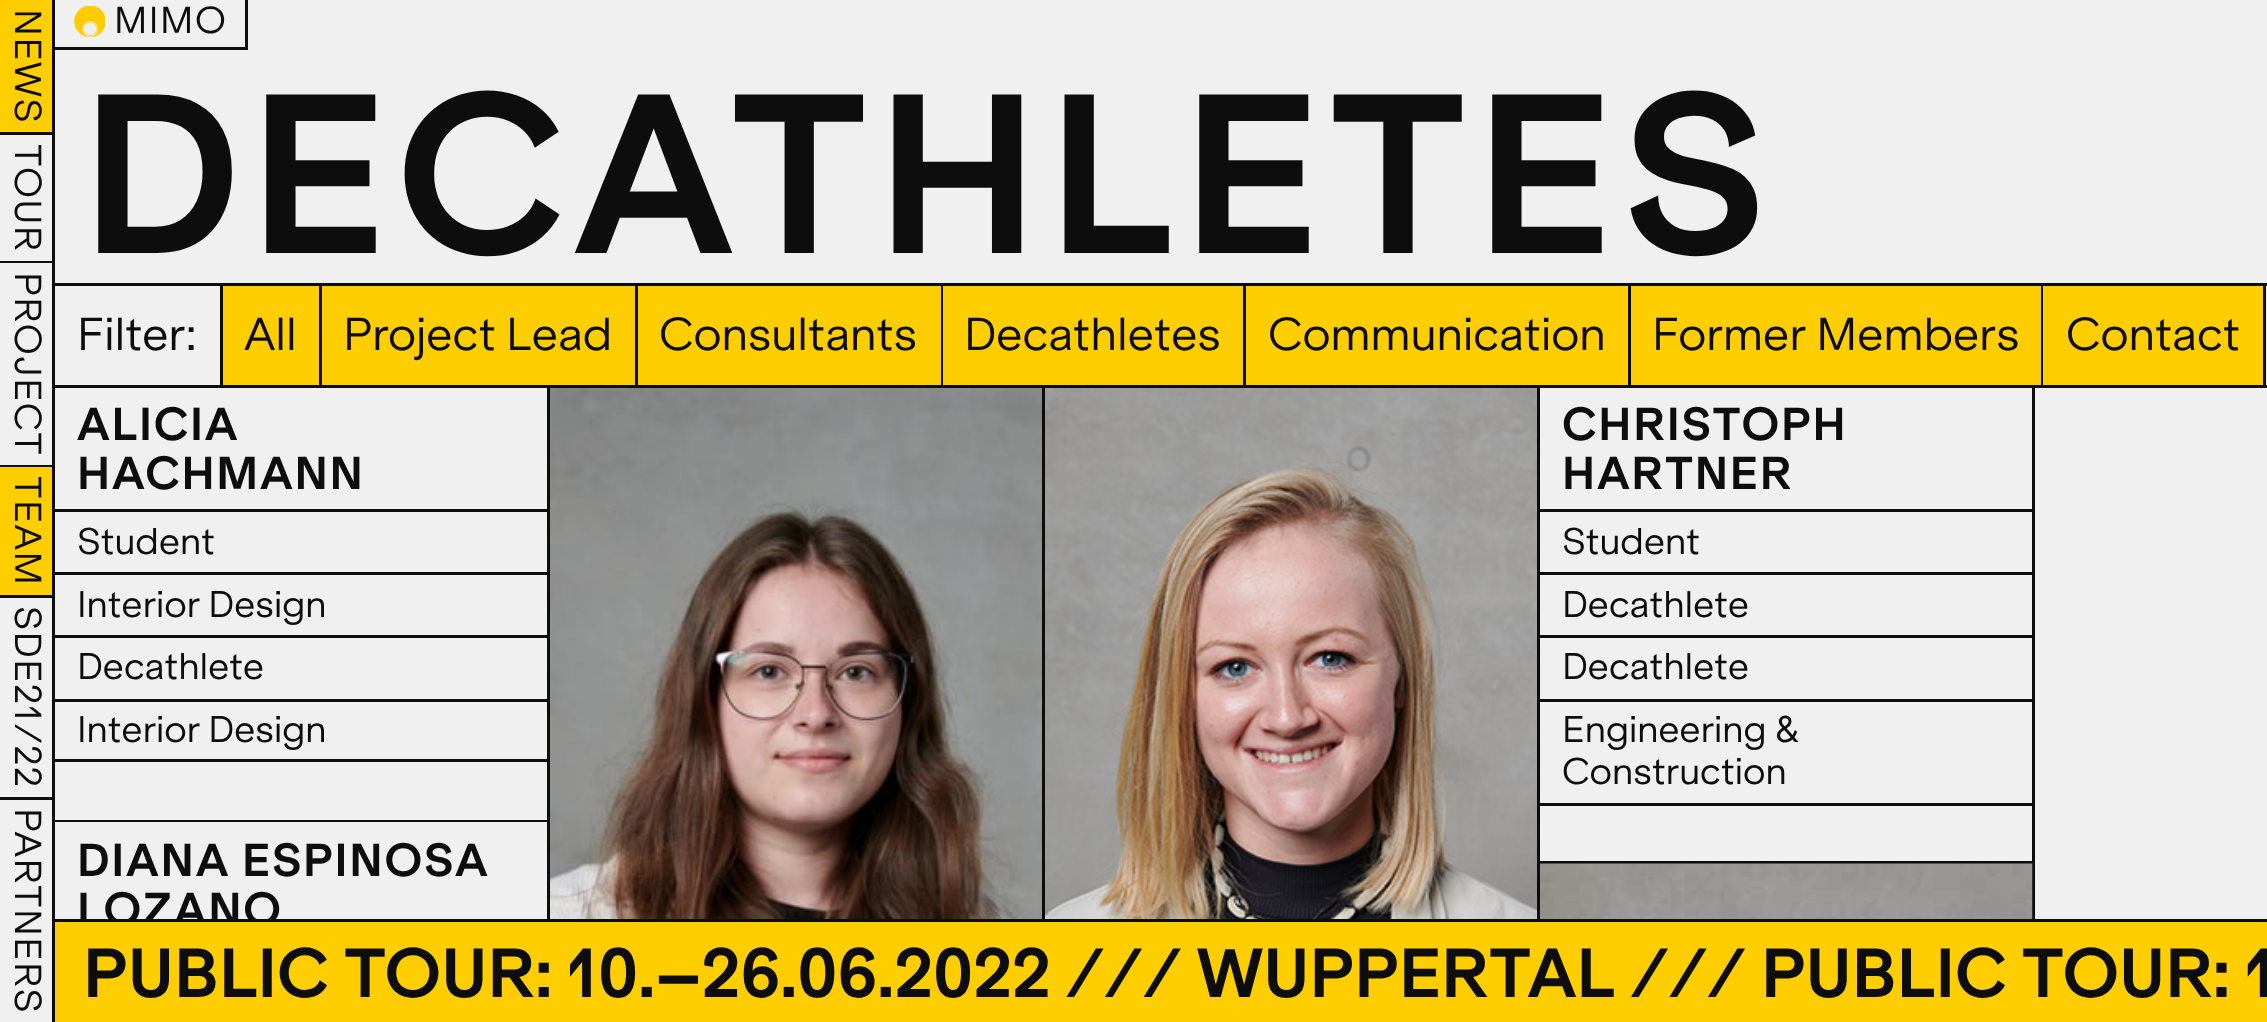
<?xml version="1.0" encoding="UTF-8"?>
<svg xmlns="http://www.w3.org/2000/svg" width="2267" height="1022">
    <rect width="100%" height="100%" fill="#F0F0F0"/>
    <rect x="0" y="0" width="52" height="132" fill="#FFCE00"/>
    <rect x="52" y="0" width="3" height="467" fill="#0D0D0D"/>
    <rect x="0" y="132" width="55" height="3" fill="#0D0D0D"/>
    <text x="15" y="9" transform="rotate(90 15 9)" font-family="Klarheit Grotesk" font-size="35.75" letter-spacing="1.5" fill="#0D0D0D">NEWS</text>
    <rect x="0" y="261" width="55" height="2" fill="#0D0D0D"/>
    <text x="15" y="144" transform="rotate(90 15 144)" font-family="Klarheit Grotesk" font-size="35.75" letter-spacing="1.5" fill="#0D0D0D">TOUR</text>
    <rect x="0" y="465" width="55" height="2" fill="#0D0D0D"/>
    <text x="15" y="272" transform="rotate(90 15 272)" font-family="Klarheit Grotesk" font-size="35.75" letter-spacing="1.5" fill="#0D0D0D">PROJECT</text>
    <rect x="0" y="467" width="52" height="128" fill="#FFCE00"/>
    <rect x="52" y="467" width="3" height="330" fill="#0D0D0D"/>
    <rect x="0" y="595" width="55" height="3" fill="#0D0D0D"/>
    <text x="15" y="476" transform="rotate(90 15 476)" font-family="Klarheit Grotesk" font-size="35.75" letter-spacing="1.5" fill="#0D0D0D">TEAM</text>
    <rect x="0" y="797" width="55" height="3" fill="#0D0D0D"/>
    <text x="15" y="606" transform="rotate(90 15 606)" font-family="Klarheit Grotesk" font-size="35.75" letter-spacing="1.5" fill="#0D0D0D">SDE21/22</text>
    <rect x="52" y="820" width="498" height="2" fill="#0D0D0D"/>
    <rect x="52" y="800" width="3" height="222" fill="#0D0D0D"/>
    <text x="15" y="808" transform="rotate(90 15 808)" font-family="Klarheit Grotesk" font-size="35.75" letter-spacing="1.5" fill="#0D0D0D">PARTNERS</text>
    <rect x="245" y="0" width="3" height="50" fill="#0D0D0D"/>
    <rect x="55" y="47" width="193" height="3" fill="#0D0D0D"/>
    <image x="74" y="6" width="31" height="32" href="img_01.png"/>
    <text x="114" y="33" font-family="Klarheit Grotesk" font-size="35.75" letter-spacing="1.5" fill="#0D0D0D">MIMO</text>
    <text x="81" y="253" font-family="Klarheit Grotesk" font-size="215.5" font-weight="700" letter-spacing="8.6" fill="#0D0D0D">DECATHLETES</text>
    <rect x="55" y="283" width="2212" height="3" fill="#0D0D0D"/>
    <rect x="55" y="385" width="2212" height="3" fill="#0D0D0D"/>
    <rect x="220" y="283" width="3" height="105" fill="#0D0D0D"/>
    <text x="77" y="350" font-family="Klarheit Grotesk" font-size="44" fill="#0D0D0D">Filter:</text>
    <rect x="319" y="283" width="3" height="105" fill="#0D0D0D"/>
    <rect x="223" y="286" width="96" height="99" fill="#FFCE00"/>
    <text x="244" y="350" font-family="Klarheit Grotesk" font-size="44" fill="#0D0D0D">All</text>
    <rect x="635" y="283" width="3" height="105" fill="#0D0D0D"/>
    <rect x="322" y="286" width="313" height="99" fill="#FFCE00"/>
    <text x="343" y="350" font-family="Klarheit Grotesk" font-size="44" fill="#0D0D0D">Project Lead</text>
    <rect x="941" y="283" width="3" height="105" fill="#0D0D0D"/>
    <rect x="638" y="286" width="303" height="99" fill="#FFCE00"/>
    <text x="659" y="350" font-family="Klarheit Grotesk" font-size="44" fill="#0D0D0D">Consultants</text>
    <rect x="1243" y="283" width="3" height="105" fill="#0D0D0D"/>
    <rect x="943" y="286" width="300" height="99" fill="#FFCE00"/>
    <text x="964" y="350" font-family="Klarheit Grotesk" font-size="44" fill="#0D0D0D">Decathletes</text>
    <rect x="1628" y="283" width="3" height="105" fill="#0D0D0D"/>
    <rect x="1246" y="286" width="382" height="99" fill="#FFCE00"/>
    <text x="1268" y="350" font-family="Klarheit Grotesk" font-size="44" fill="#0D0D0D">Communication</text>
    <rect x="2041" y="283" width="3" height="105" fill="#0D0D0D"/>
    <rect x="1631" y="286" width="410" height="99" fill="#FFCE00"/>
    <text x="1652" y="350" font-family="Klarheit Grotesk" font-size="44" fill="#0D0D0D">Former Members</text>
    <rect x="2263" y="283" width="3" height="105" fill="#0D0D0D"/>
    <rect x="2043" y="286" width="220" height="99" fill="#FFCE00"/>
    <text x="2066" y="350" font-family="Klarheit Grotesk" font-size="44" fill="#0D0D0D">Contact</text>
    <rect x="55" y="509" width="492" height="3" fill="#0D0D0D"/>
    <text font-family="Klarheit Grotesk" font-size="44" font-weight="700" letter-spacing="1.75" fill="#0D0D0D">
        <tspan x="77" y="440">ALICIA</tspan>
        <tspan x="77" y="489">HACHMANN</tspan>
    </text>
    <rect x="55" y="572" width="492" height="3" fill="#0D0D0D"/>
    <text x="77" y="554" font-family="Klarheit Grotesk" font-size="35.25" fill="#0D0D0D">Student</text>
    <rect x="55" y="635" width="492" height="3" fill="#0D0D0D"/>
    <text x="77" y="617" font-family="Klarheit Grotesk" font-size="35.25" fill="#0D0D0D">Interior Design</text>
    <rect x="55" y="699" width="492" height="3" fill="#0D0D0D"/>
    <text x="77" y="679" font-family="Klarheit Grotesk" font-size="35.25" fill="#0D0D0D">Decathlete</text>
    <rect x="55" y="759" width="492" height="3" fill="#0D0D0D"/>
    <text x="77" y="742" font-family="Klarheit Grotesk" font-size="35.25" fill="#0D0D0D">Interior Design</text>
    <rect x="547" y="388" width="3" height="531" fill="#0D0D0D"/>
    <image x="550" y="388" width="492" height="531" href="img_02.png"/>
    <rect x="1042" y="388" width="3" height="531" fill="#0D0D0D"/>
    <image x="1045" y="388" width="492" height="531" href="img_03.png"/>
    <rect x="2032" y="388" width="3" height="531" fill="#0D0D0D"/>
    <rect x="1537" y="861" width="498" height="3" fill="#0D0D0D"/>
    <rect x="1537" y="388" width="3" height="531" fill="#0D0D0D"/>
    <rect x="1540" y="509" width="492" height="3" fill="#0D0D0D"/>
    <text font-family="Klarheit Grotesk" font-size="44" font-weight="700" letter-spacing="1.75" fill="#0D0D0D">
        <tspan x="1562" y="440">CHRISTOPH</tspan>
        <tspan x="1562" y="489">HARTNER</tspan>
    </text>
    <rect x="1540" y="572" width="492" height="3" fill="#0D0D0D"/>
    <text x="1562" y="554" font-family="Klarheit Grotesk" font-size="35.25" fill="#0D0D0D">Student</text>
    <rect x="1540" y="635" width="492" height="3" fill="#0D0D0D"/>
    <text x="1562" y="617" font-family="Klarheit Grotesk" font-size="35.25" fill="#0D0D0D">Decathlete</text>
    <rect x="1540" y="699" width="492" height="3" fill="#0D0D0D"/>
    <text x="1562" y="679" font-family="Klarheit Grotesk" font-size="35.25" fill="#0D0D0D">Decathlete</text>
    <rect x="1540" y="803" width="492" height="3" fill="#0D0D0D"/>
    <text font-family="Klarheit Grotesk" font-size="35.25" fill="#0D0D0D">
        <tspan x="1562" y="742">Engineering &amp;</tspan>
        <tspan x="1562" y="784">Construction</tspan>
    </text>
    <text font-family="Klarheit Grotesk" font-size="44" font-weight="700" letter-spacing="1.75" fill="#0D0D0D">
        <tspan x="77" y="876">DIANA ESPINOSA</tspan>
        <tspan x="77" y="925">LOZANO</tspan>
    </text>
    <image x="1540" y="863" width="493" height="56" href="img_04.png"/>
    <rect x="55" y="922" width="2212" height="100" fill="#FFCE00"/>
    <rect x="55" y="919" width="2212" height="3" fill="#0D0D0D"/>
    <text x="83" y="997" font-family="Klarheit Grotesk" font-size="66" font-weight="700" fill="#0D0D0D">PUBLIC TOUR: 10.–26.06.2022 /// WUPPERTAL /// PUBLIC TOUR: 1</text>
</svg>
